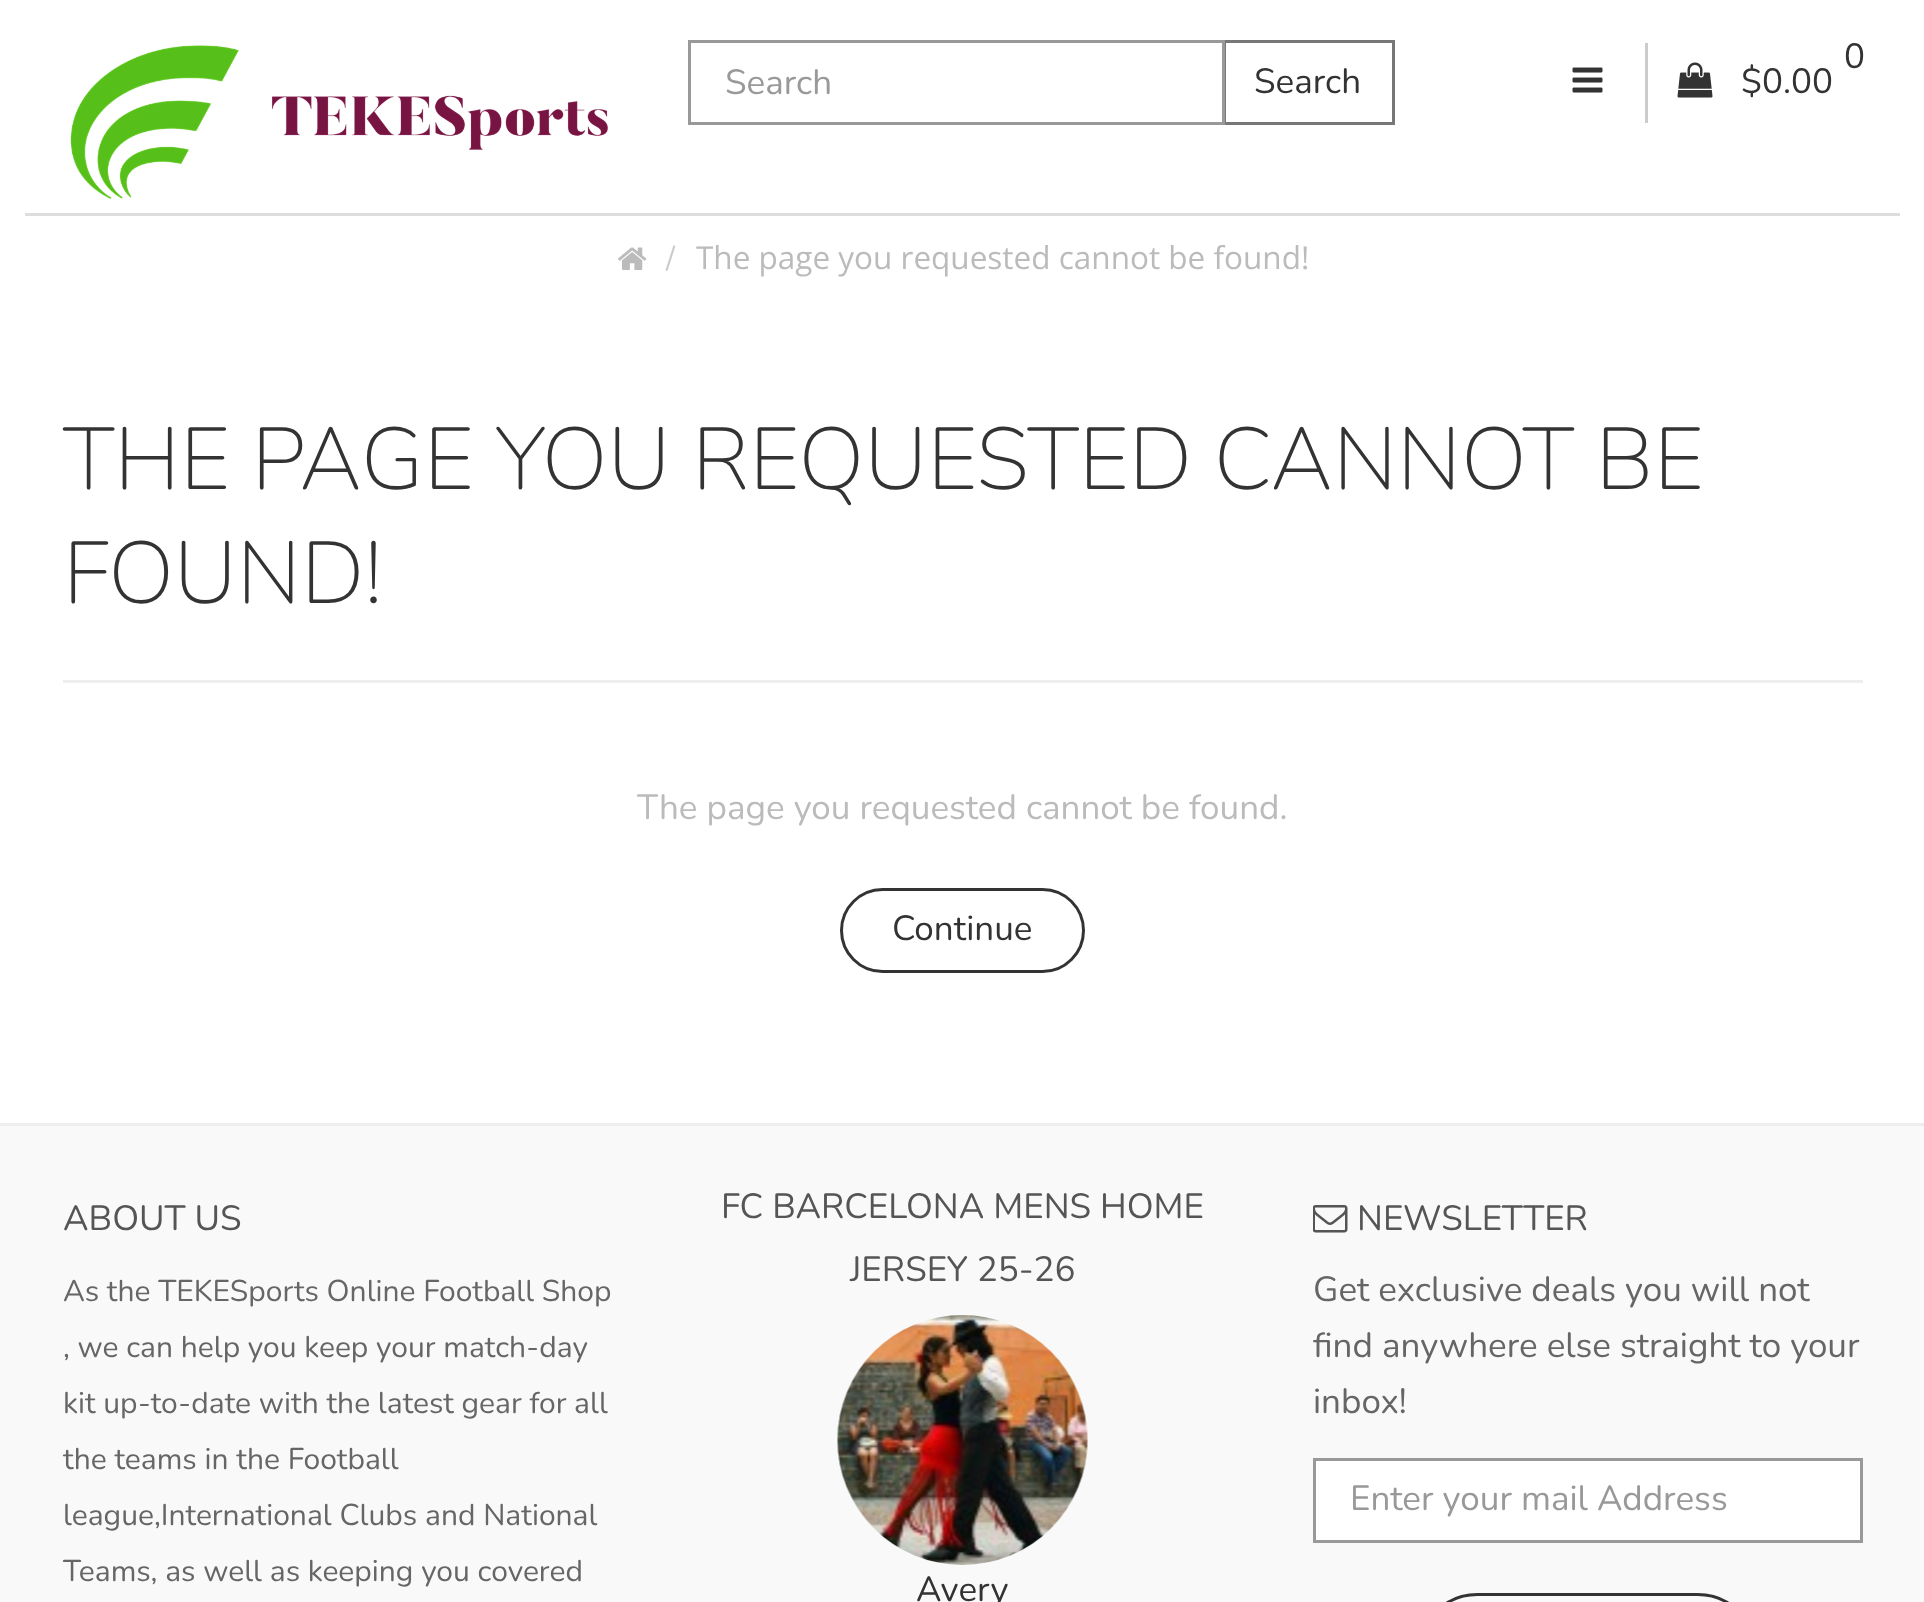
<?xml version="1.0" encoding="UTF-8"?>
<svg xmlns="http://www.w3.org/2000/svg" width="1924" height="1602">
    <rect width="100%" height="100%" fill="#FFFFFF"/>
    <rect x="25" y="213" width="1875" height="3" fill="#DDDDDD"/>
    <image x="70" y="45" width="538" height="154" href="img_01.png"/>
    <rect x="1224.5" y="41.5" width="169" height="82" fill="none" stroke="#777777" stroke-width="3"/>
    <rect x="689.5" y="41.5" width="534" height="82" fill="none" stroke="#999999" stroke-width="3"/>
    <text x="725" y="94" font-family="Nunito" font-size="35" fill="#999999">Search</text>
    <text x="1254" y="93" font-family="Nunito" font-size="35" fill="#333333">Search</text>
    <image x="1572" y="67" width="31" height="26" href="img_02.png"/>
    <rect x="1645" y="43" width="3" height="80" fill="#CCCCCC"/>
    <image x="1677" y="62" width="36" height="36" href="img_03.png"/>
    <text x="1844" y="68" font-family="Nunito" font-size="35" fill="#333333">0</text>
    <text x="1741" y="93" font-family="Nunito" font-size="35" fill="#333333">$0.00</text>
    <image x="618" y="247" width="29" height="23" href="img_04.png"/>
    <text x="666" y="269" font-family="Nunito" font-size="31.5" fill="#CCCCCC">/</text>
    <text x="696" y="269" font-family="Open Sans" font-size="31.5" fill="#BBBBBB">The page you requested cannot be found!</text>
    <rect x="63" y="680" width="1800" height="3" fill="#EEEEEE"/>
    <text font-family="Nunito" font-size="87.5" font-weight="200" fill="#333333">
        <tspan x="63" y="489">THE PAGE YOU REQUESTED CANNOT BE</tspan>
        <tspan x="63" y="603">FOUND!</tspan>
    </text>
    <text x="637" y="819" font-family="Nunito" font-size="35" fill="#BBBBBB">The page you requested cannot be found.</text>
    <rect x="841.5" y="889.5" width="242" height="82" rx="41" fill="none" stroke="#333333" stroke-width="3"/>
    <text x="892" y="940" font-family="Nunito" font-size="35" fill="#333333">Continue</text>
    <rect x="0" y="1126" width="1924" height="476" fill="#F9F9F9"/>
    <rect x="0" y="1123" width="1924" height="3" fill="#EEEEEE"/>
    <text x="63" y="1230" font-family="Nunito" font-size="35" fill="#555555">ABOUT US</text>
    <text font-family="Nunito" font-size="30" fill="#666666">
        <tspan x="63" y="1301">As the TEKESports Online Football Shop</tspan>
        <tspan x="63" y="1357">, we can help you keep your match-day</tspan>
        <tspan x="63" y="1413">kit up-to-date with the latest gear for all</tspan>
        <tspan x="63" y="1469">the teams in the Football</tspan>
        <tspan x="63" y="1525">league,International Clubs and National</tspan>
        <tspan x="63" y="1581">Teams, as well as keeping you covered</tspan>
    </text>
    <text x="721" y="1218" font-family="Nunito" font-size="35" fill="#555555">FC BARCELONA MENS HOME</text>
    <text x="850" y="1281" font-family="Nunito" font-size="35" fill="#555555">JERSEY 25-26</text>
    <image x="837" y="1315" width="251" height="250" href="img_05.png"/>
    <text x="916" y="1601" font-family="Nunito" font-size="35" fill="#333333">Avery</text>
    <image x="1313" y="1205" width="35" height="28" href="img_06.png"/>
    <text x="1357" y="1230" font-family="Nunito" font-size="35" fill="#555555">NEWSLETTER</text>
    <text font-family="Nunito" font-size="35" fill="#666666">
        <tspan x="1313" y="1301">Get exclusive deals you will not</tspan>
        <tspan x="1313" y="1357">find anywhere else straight to your</tspan>
        <tspan x="1313" y="1413">inbox!</tspan>
    </text>
    <rect x="1314.5" y="1459.5" width="547" height="82" fill="#FFFFFF" stroke="#999999" stroke-width="3"/>
    <text x="1350" y="1510" font-family="Nunito" font-size="35" fill="#999999">Enter your mail Address</text>
    <rect x="1436.5" y="1594.5" width="302" height="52" rx="41" fill="none" stroke="#333333" stroke-width="3"/>
</svg>
